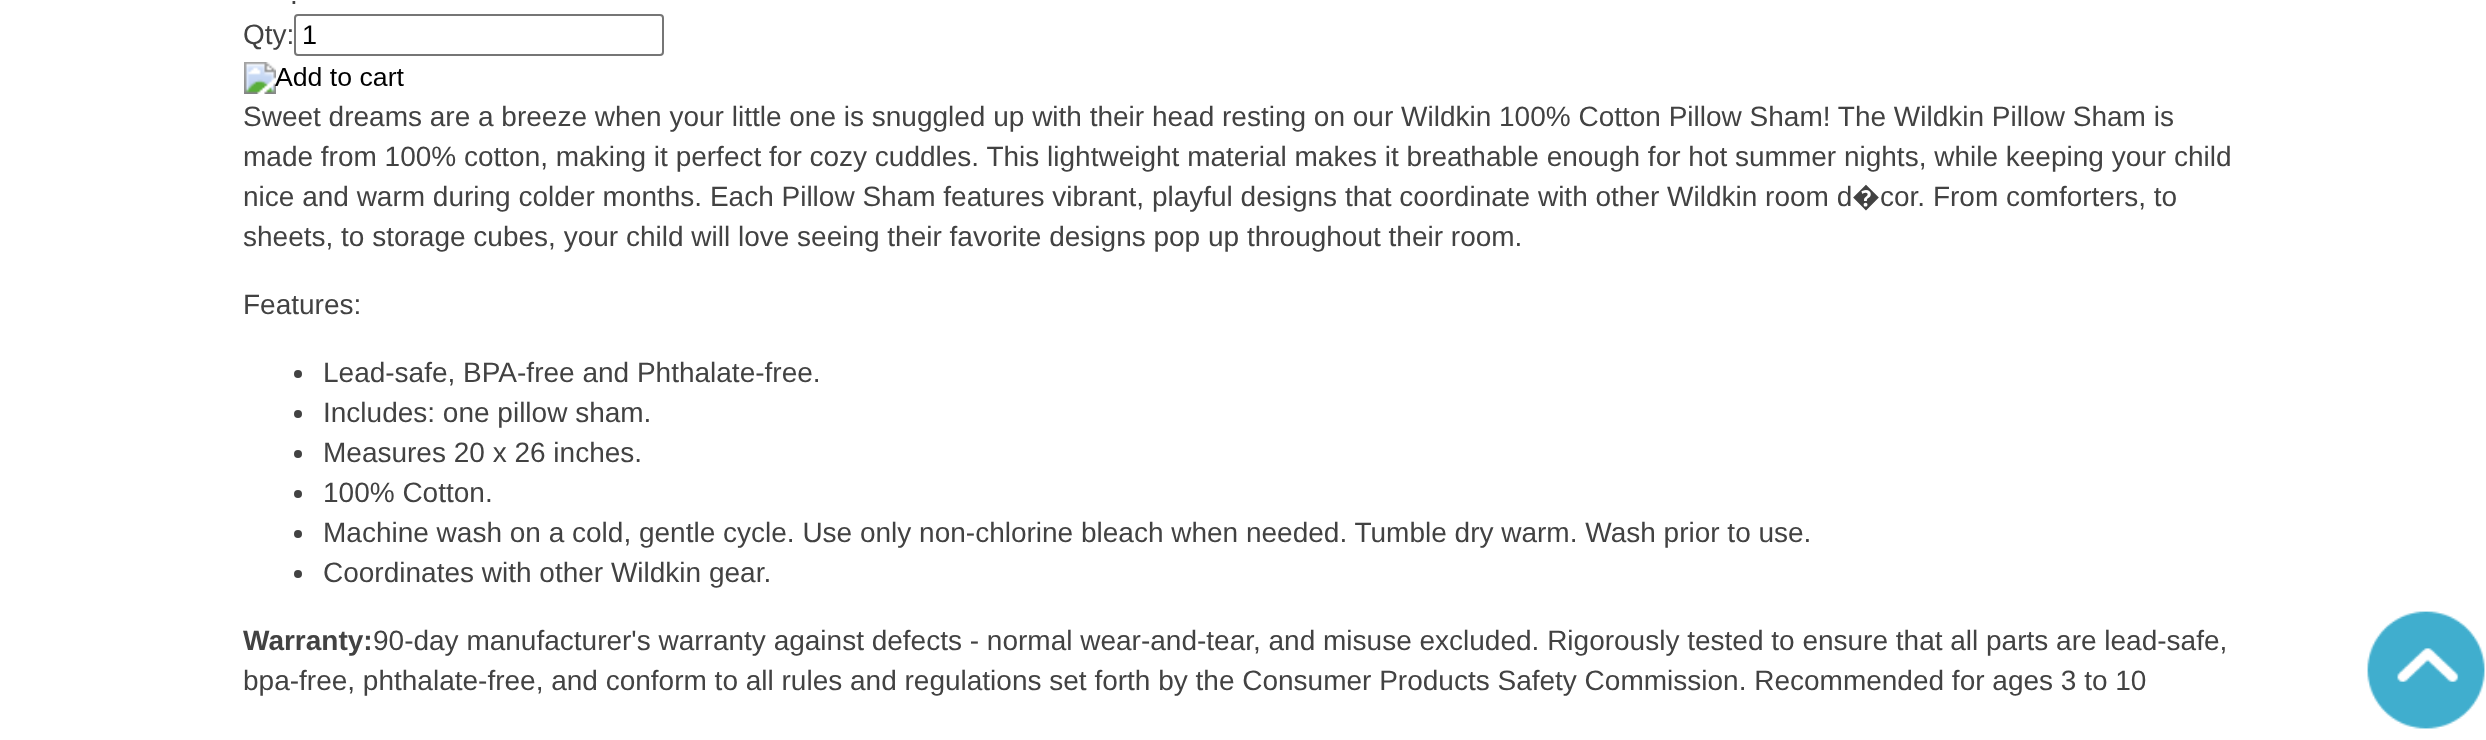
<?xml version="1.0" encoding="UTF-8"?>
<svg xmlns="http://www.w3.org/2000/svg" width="2486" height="740">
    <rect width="100%" height="100%" fill="#FFFFFF"/>
    <text x="290" y="4" font-family="Liberation Sans" font-size="28" fill="#424242">.</text>
    <text x="243" y="44" font-family="Liberation Sans" font-size="28" fill="#424242">Qty:</text>
    <rect x="295" y="15" width="368" height="40" rx="3" fill="none" stroke="#767676" stroke-width="2"/>
    <text x="302" y="44" font-family="Liberation Sans" font-size="27" fill="#000000">1</text>
    <image x="244" y="62" width="160" height="32" href="img_01.png"/>
    <text font-family="Liberation Sans" font-size="28" fill="#424242">
        <tspan x="243" y="126">Sweet dreams are a breeze when your little one is snuggled up with their head resting on our Wildkin 100% Cotton Pillow Sham! The Wildkin Pillow Sham is</tspan>
        <tspan x="243" y="166">made from 100% cotton, making it perfect for cozy cuddles. This lightweight material makes it breathable enough for hot summer nights, while keeping your child</tspan>
        <tspan x="243" y="206">nice and warm during colder months. Each Pillow Sham features vibrant, playful designs that coordinate with other Wildkin room d</tspan>
    </text>
    <text x="1852" y="206" font-family="Noto Sans" font-size="28" fill="#424242">�</text>
    <text x="1880" y="206" font-family="Liberation Sans" font-size="28" fill="#424242">cor. From comforters, to</text>
    <text x="243" y="246" font-family="Liberation Sans" font-size="28" fill="#424242">sheets, to storage cubes, your child will love seeing their favorite designs pop up throughout their room.</text>
    <text x="243" y="314" font-family="Liberation Sans" font-size="28" fill="#424242">Features:</text>
    <circle cx="298" cy="374" r="4" fill="#424242"/>
    <text x="323" y="382" font-family="Liberation Sans" font-size="28" fill="#424242">Lead-safe, BPA-free and Phthalate-free.</text>
    <circle cx="298" cy="414" r="4" fill="#424242"/>
    <text x="323" y="422" font-family="Liberation Sans" font-size="28" fill="#424242">Includes: one pillow sham.</text>
    <circle cx="298" cy="454" r="4" fill="#424242"/>
    <text x="323" y="462" font-family="Liberation Sans" font-size="28" fill="#424242">Measures 20 x 26 inches.</text>
    <circle cx="298" cy="494" r="4" fill="#424242"/>
    <text x="323" y="502" font-family="Liberation Sans" font-size="28" fill="#424242">100% Cotton.</text>
    <circle cx="298" cy="534" r="4" fill="#424242"/>
    <text x="323" y="542" font-family="Liberation Sans" font-size="28" fill="#424242">Machine wash on a cold, gentle cycle. Use only non-chlorine bleach when needed. Tumble dry warm. Wash prior to use.</text>
    <circle cx="298" cy="574" r="4" fill="#424242"/>
    <text x="323" y="582" font-family="Liberation Sans" font-size="28" fill="#424242">Coordinates with other Wildkin gear.</text>
    <text x="243" y="650" font-family="Liberation Sans" font-size="28" font-weight="700" fill="#424242">Warranty:</text>
    <text x="373" y="650" font-family="Liberation Sans" font-size="28" fill="#424242">90-day manufacturer's warranty against defects - normal wear-and-tear, and misuse excluded. Rigorously tested to ensure that all parts are lead-safe,</text>
    <text x="243" y="690" font-family="Liberation Sans" font-size="28" fill="#424242">bpa-free, phthalate-free, and conform to all rules and regulations set forth by the Consumer Products Safety Commission. Recommended for ages 3 to 10</text>
    <image x="2367" y="611" width="118" height="118" href="img_02.png"/>
</svg>
